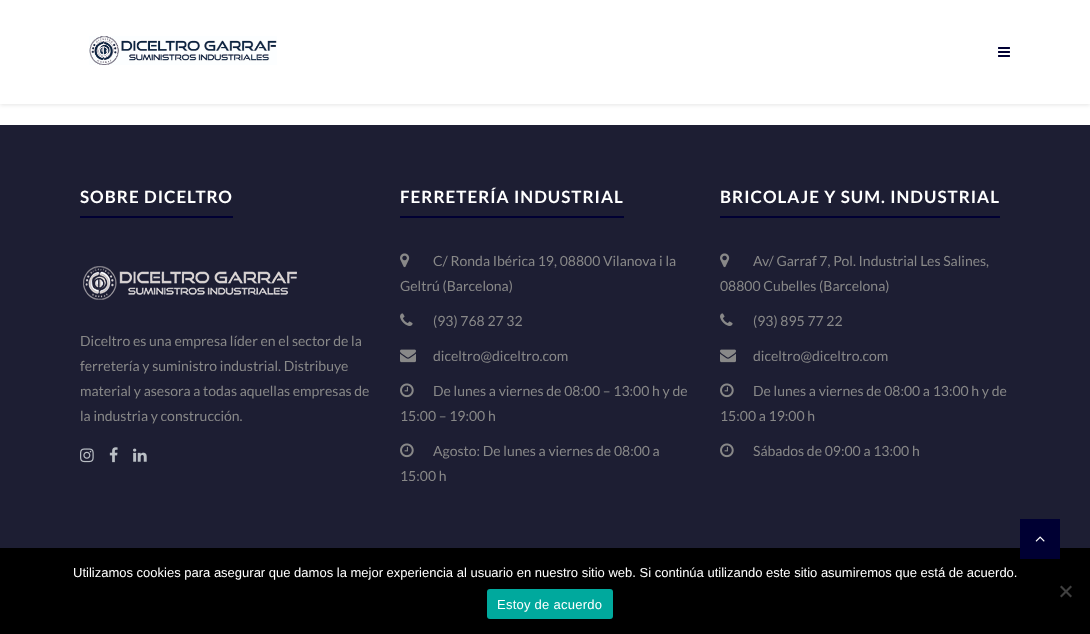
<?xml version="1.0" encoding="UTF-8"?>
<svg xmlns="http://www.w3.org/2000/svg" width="1090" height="634">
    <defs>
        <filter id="blur1" x="-50%" y="-200%" width="200%" height="500%"><feGaussianBlur stdDeviation="2"/></filter>
    </defs>
    <rect width="100%" height="100%" fill="#FFFFFF"/>
    <rect x="0" y="1" width="1090" height="104" fill="#000000" fill-opacity="0.1" filter="url(#blur1)"/>
    <rect x="0" y="0" width="1090" height="104" fill="#FFFFFF"/>
    <image x="89" y="36" width="188" height="29" href="img_01.png"/>
    <image x="998" y="47" width="12" height="10" href="img_02.png"/>
    <rect x="0" y="125" width="1090" height="423" fill="#1D1E33"/>
    <text x="80" y="203" font-family="Lato" font-size="17" font-weight="700" letter-spacing="1" fill="#FFFFFF">SOBRE DICELTRO</text>
    <rect x="80" y="216" width="153" height="2" fill="#000033"/>
    <image x="83" y="266" width="214" height="34" href="img_03.png"/>
    <text font-family="Lato" font-size="14" fill="#888888">
        <tspan x="80" y="346">Diceltro es una empresa líder en el sector de la</tspan>
        <tspan x="80" y="371">ferretería y suministro industrial. Distribuye</tspan>
        <tspan x="80" y="396">material y asesora a todas aquellas empresas de</tspan>
        <tspan x="80" y="421">la industria y construcción.</tspan>
    </text>
    <image x="80" y="448" width="14" height="15" href="img_04.png"/>
    <image x="109" y="447" width="9" height="16" href="img_05.png"/>
    <image x="133" y="448" width="14" height="14" href="img_06.png"/>
    <text x="400" y="203" font-family="Lato" font-size="17" font-weight="700" letter-spacing="1" fill="#FFFFFF">FERRETERÍA INDUSTRIAL</text>
    <rect x="400" y="216" width="224" height="2" fill="#000033"/>
    <image x="400" y="253" width="10" height="15" href="img_07.png"/>
    <text x="433" y="266" font-family="Lato" font-size="14" fill="#888888">C/ Ronda Ibérica 19, 08800 Vilanova i la</text>
    <text x="400" y="291" font-family="Lato" font-size="14" fill="#888888">Geltrú (Barcelona)</text>
    <image x="400" y="313" width="13" height="13" href="img_08.png"/>
    <text x="433" y="326" font-family="Lato" font-size="14" fill="#888888">(93) 768 27 32</text>
    <image x="400" y="349" width="16" height="14" href="img_09.png"/>
    <text x="433" y="361" font-family="Lato" font-size="14" fill="#888888">diceltro@diceltro.com</text>
    <image x="400" y="383" width="14" height="15" href="img_10.png"/>
    <text x="433" y="396" font-family="Lato" font-size="14" fill="#888888">De lunes a viernes de 08:00 – 13:00 h y de</text>
    <text x="400" y="421" font-family="Lato" font-size="14" fill="#888888">15:00 – 19:00 h</text>
    <image x="400" y="443" width="14" height="15" href="img_10.png"/>
    <text x="433" y="456" font-family="Lato" font-size="14" fill="#888888">Agosto: De lunes a viernes de 08:00 a</text>
    <text x="400" y="481" font-family="Lato" font-size="14" fill="#888888">15:00 h</text>
    <text x="720" y="203" font-family="Lato" font-size="17" font-weight="700" letter-spacing="1" fill="#FFFFFF">BRICOLAJE Y SUM. INDUSTRIAL</text>
    <rect x="720" y="216" width="280" height="2" fill="#000033"/>
    <image x="720" y="253" width="10" height="15" href="img_07.png"/>
    <text x="753" y="266" font-family="Lato" font-size="14" fill="#888888">Av/ Garraf 7, Pol. Industrial Les Salines,</text>
    <text x="720" y="291" font-family="Lato" font-size="14" fill="#888888">08800 Cubelles (Barcelona)</text>
    <image x="720" y="313" width="13" height="13" href="img_08.png"/>
    <text x="753" y="326" font-family="Lato" font-size="14" fill="#888888">(93) 895 77 22</text>
    <image x="720" y="349" width="16" height="14" href="img_09.png"/>
    <text x="753" y="361" font-family="Lato" font-size="14" fill="#888888">diceltro@diceltro.com</text>
    <image x="720" y="383" width="14" height="15" href="img_10.png"/>
    <text x="753" y="396" font-family="Lato" font-size="14" fill="#888888">De lunes a viernes de 08:00 a 13:00 h y de</text>
    <text x="720" y="421" font-family="Lato" font-size="14" fill="#888888">15:00 a 19:00 h</text>
    <image x="720" y="443" width="14" height="15" href="img_10.png"/>
    <text x="753" y="456" font-family="Lato" font-size="14" fill="#888888">Sábados de 09:00 a 13:00 h</text>
    <rect x="0" y="548" width="1090" height="86" fill="#000000"/>
    <text x="73" y="577" font-family="Liberation Sans" font-size="13" fill="#FFFFFF">Utilizamos cookies para asegurar que damos la mejor experiencia al usuario en nuestro sitio web. Si continúa utilizando este sitio asumiremos que está de acuerdo.</text>
    <path d="M 1070.5 585.5 L 1072 587 L 1061.5 597.5 L 1060 596 Z" fill="#404040"/>
    <path d="M 1060 587 L 1061.5 585.5 L 1072 596 L 1070.5 597.5 Z" fill="#404040"/>
    <rect x="487" y="589" width="126" height="30" rx="3" fill="#00A99D"/>
    <text x="497" y="609" font-family="Liberation Sans" font-size="13" letter-spacing="0.25" fill="#FFFFFF">Estoy de acuerdo</text>
    <rect x="1020" y="519" width="40" height="40" fill="#000033"/>
    <image x="1035" y="536" width="10" height="6" href="img_11.png"/>
</svg>
